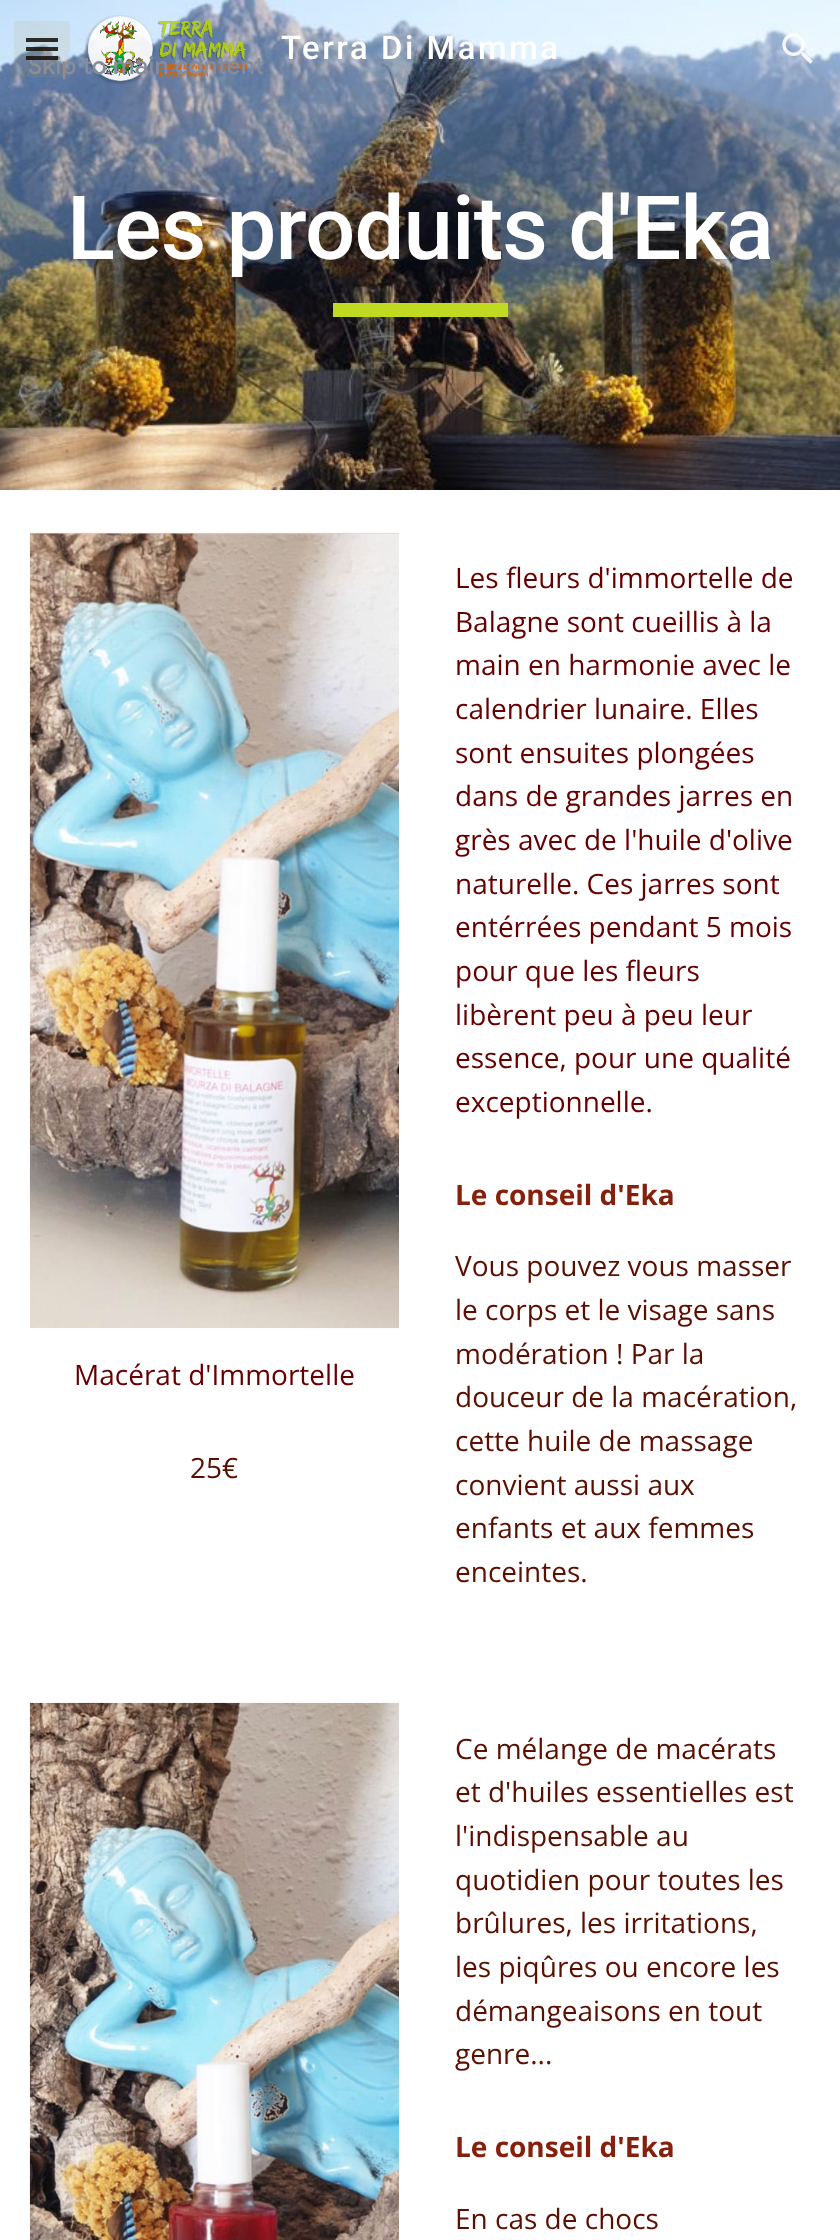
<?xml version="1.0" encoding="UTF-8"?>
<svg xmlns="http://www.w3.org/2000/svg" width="840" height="2240">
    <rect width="100%" height="100%" fill="#FFFFFF"/>
    <image x="0" y="0" width="840" height="490" href="img_03.png"/>
    <rect x="26" y="38" width="32" height="4" fill="#000000" fill-opacity="0.88"/>
    <rect x="26" y="47" width="32" height="4" fill="#000000" fill-opacity="0.88"/>
    <image x="84" y="15" width="164" height="69" href="img_01.png"/>
    <text x="28" y="74" font-family="Google Sans" font-size="24.5" font-weight="500" letter-spacing="0.25" fill="#878C9A">Skip to main content</text>
    <rect x="26" y="56" width="32" height="4" fill="#000000" fill-opacity="0.88"/>
    <rect x="14" y="21" width="56" height="56" fill="#B79951" fill-opacity="0.12"/>
    <text x="281" y="59" font-family="Roboto" font-size="32.75" font-weight="500" letter-spacing="2.6" fill="#FFFFFF">Terra Di Mamma</text>
    <image x="782" y="33" width="31" height="31" href="img_02.png"/>
    <text x="67" y="259" font-family="Roboto" font-size="88.75" font-weight="500" letter-spacing="-0.9" fill="#FFFFFF">Les produits d'Eka</text>
    <rect x="333" y="303" width="175" height="14" fill="#C0DA21"/>
    <image x="29" y="532" width="370" height="797" href="img_04.png"/>
    <text x="74" y="1385" font-family="Open Sans" font-size="28" fill="#660000">Macérat d'Immortelle</text>
    <text x="190" y="1478" font-family="Open Sans" font-size="28" fill="#5B0F00">25€</text>
    <text font-family="Open Sans" font-size="28" fill="#660000">
        <tspan x="455" y="588">Les fleurs d'immortelle de</tspan>
        <tspan x="455" y="632">Balagne sont cueillis à la</tspan>
        <tspan x="455" y="675">main en harmonie avec le</tspan>
        <tspan x="455" y="719">calendrier lunaire. Elles</tspan>
        <tspan x="455" y="763">sont ensuites plongées</tspan>
        <tspan x="455" y="806">dans de grandes jarres en</tspan>
        <tspan x="455" y="850">grès avec de l'huile d'olive</tspan>
        <tspan x="455" y="894">naturelle. Ces jarres sont</tspan>
        <tspan x="455" y="937">entérrées pendant 5 mois</tspan>
        <tspan x="455" y="981">pour que les fleurs</tspan>
        <tspan x="455" y="1025">libèrent peu à peu leur</tspan>
        <tspan x="455" y="1068">essence, pour une qualité</tspan>
        <tspan x="455" y="1112">exceptionnelle.</tspan>
    </text>
    <text x="455" y="1205" font-family="Open Sans" font-size="28" font-weight="700" fill="#85200C">Le conseil d'Eka</text>
    <text font-family="Open Sans" font-size="28" fill="#5B0F00">
        <tspan x="455" y="1276">Vous pouvez vous masser</tspan>
        <tspan x="455" y="1320">le corps et le visage sans</tspan>
        <tspan x="455" y="1364">modération ! Par la</tspan>
        <tspan x="455" y="1407">douceur de la macération,</tspan>
        <tspan x="455" y="1451">cette huile de massage</tspan>
        <tspan x="455" y="1495">convient aussi aux</tspan>
        <tspan x="455" y="1538">enfants et aux femmes</tspan>
        <tspan x="455" y="1582">enceintes.</tspan>
    </text>
    <image x="29" y="1702" width="370" height="538" href="img_05.png"/>
    <text font-family="Open Sans" font-size="28" fill="#5B0F00">
        <tspan x="455" y="1759">Ce mélange de macérats</tspan>
        <tspan x="455" y="1802">et d'huiles essentielles est</tspan>
        <tspan x="455" y="1846">l'indispensable au</tspan>
        <tspan x="455" y="1890">quotidien pour toutes les</tspan>
        <tspan x="455" y="1933">brûlures, les irritations,</tspan>
        <tspan x="455" y="1977">les piqûres ou encore les</tspan>
        <tspan x="455" y="2021">démangeaisons en tout</tspan>
        <tspan x="455" y="2064">genre...</tspan>
    </text>
    <text x="455" y="2157" font-family="Open Sans" font-size="28" font-weight="700" fill="#85200C">Le conseil d'Eka</text>
    <text x="455" y="2229" font-family="Open Sans" font-size="28" fill="#5B0F00">En cas de chocs</text>
</svg>
